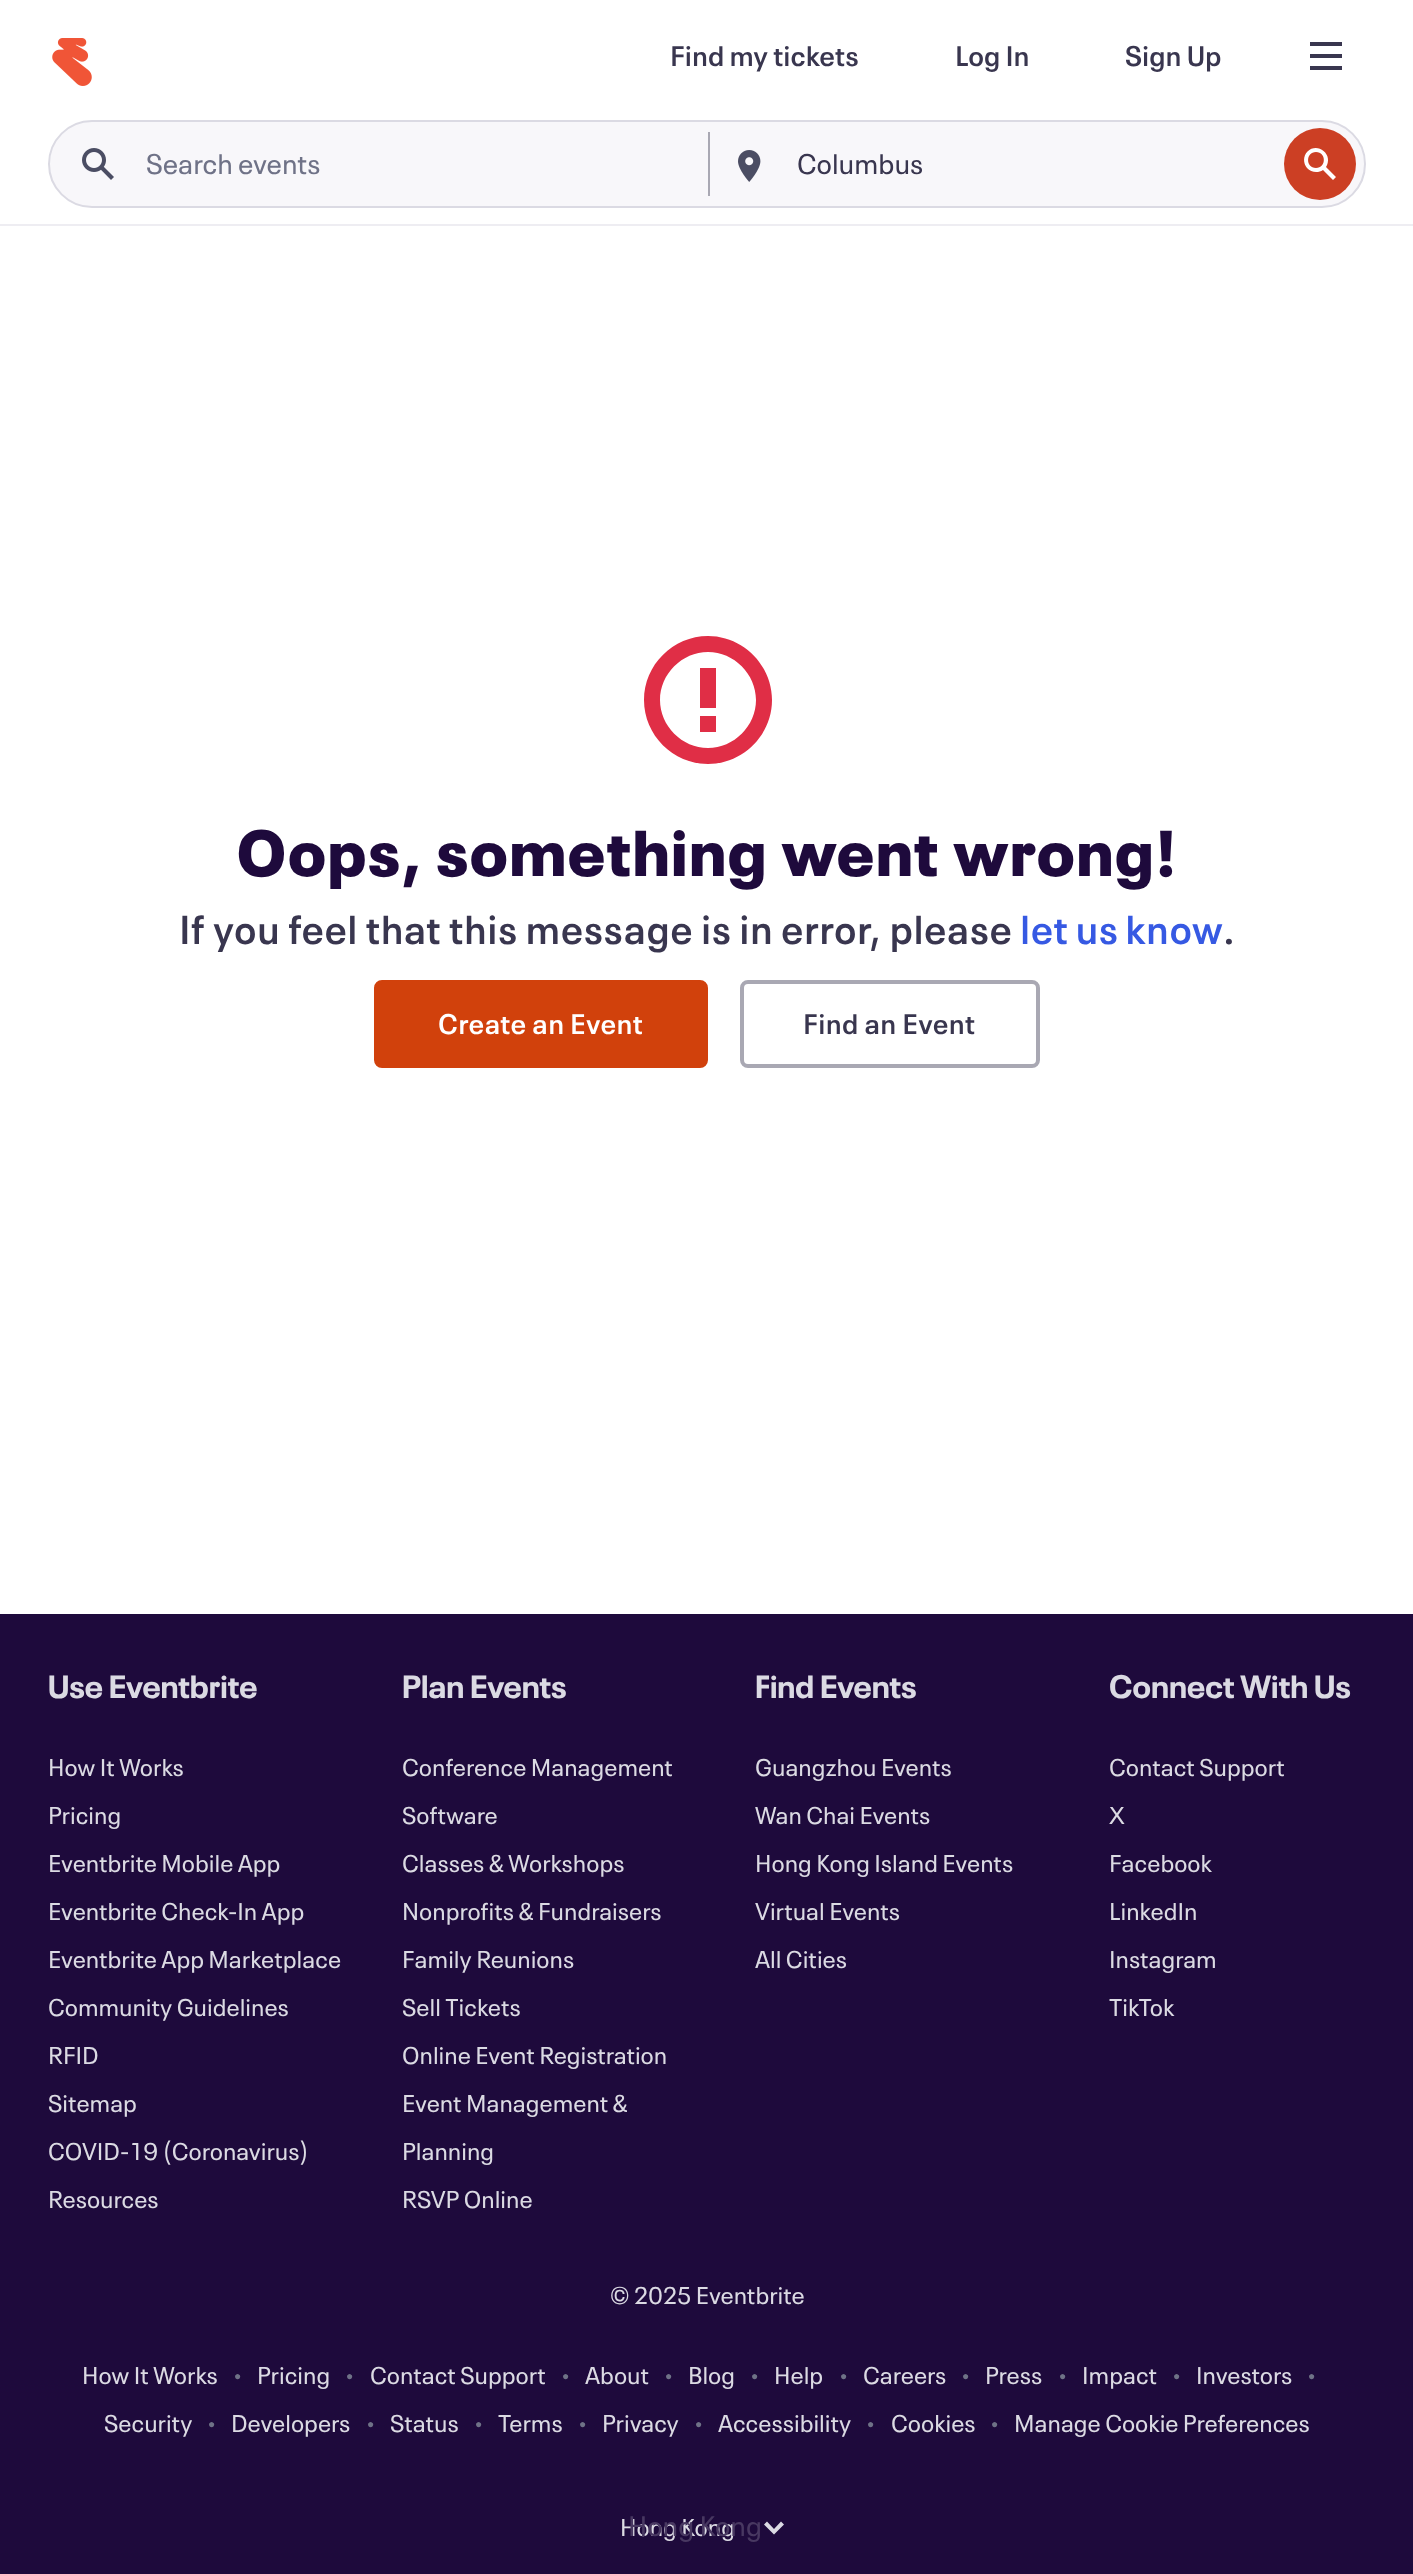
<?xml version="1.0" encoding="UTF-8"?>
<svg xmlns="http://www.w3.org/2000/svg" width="1413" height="2574">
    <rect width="100%" height="100%" fill="#FFFFFF"/>
    <rect x="0" y="224" width="1413" height="2" fill="#EEEDF2"/>
    <image x="52" y="38" width="40" height="48" href="img_01.png"/>
    <text x="670" y="66" font-family="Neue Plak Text" font-size="28" font-weight="600" fill="#39364F">Find my tickets</text>
    <text x="955" y="66" font-family="Neue Plak Text" font-size="28" font-weight="600" fill="#39364F">Log In</text>
    <text x="1125" y="66" font-family="Neue Plak Text" font-size="28" font-weight="600" fill="#39364F">Sign Up</text>
    <image x="1310" y="42" width="32" height="28" href="img_02.png"/>
    <rect x="49" y="121" width="1316" height="86" rx="43" fill="#F8F7FA" stroke="#DBDAE3" stroke-width="2"/>
    <image x="82" y="148" width="32" height="32" href="img_03.png"/>
    <text x="146" y="174" font-family="Neue Plak Text" font-size="28" fill="#6F7287">Search events</text>
    <rect x="708" y="132" width="2" height="64" fill="#A9A8B3"/>
    <image x="738" y="150" width="23" height="32" href="img_04.png"/>
    <text x="797" y="174" font-family="Neue Plak Text" font-size="28" fill="#39364F">Columbus</text>
    <circle cx="1320" cy="164" r="36" fill="#CC3F24"/>
    <path d="M 1326 167 C 1329.5 161.5 1328.5 155 1323.5 151 C 1319 147 1312 147 1307.5 151.5 C 1303 156 1303 163 1307 168 C 1311 172.5 1318 173.5 1323 170 L 1333 180 L 1336 177 Z M 1316 168 C 1326.5 168 1326.5 152 1316 152 C 1305.5 152 1305.5 168 1316 168 Z" fill="#FFFFFF" fill-rule="evenodd"/>
    <path d="M 708 748 C 682 748 660 726 660 700 C 660 674 682 652 708 652 C 734 652 756 674 756 700 C 756 726 734 748 708 748 Z M 708 636 C 673 636 644 665 644 700 C 644 735 673 764 708 764 C 743 764 772 735 772 700 C 772 665 743 636 708 636 Z" fill="#E02E46" fill-rule="evenodd"/>
    <rect x="700" y="668" width="16" height="40" fill="#E02E46"/>
    <rect x="700" y="716" width="16" height="16" fill="#E02E46"/>
    <text x="237" y="876" font-family="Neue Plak" font-size="64" font-weight="900" letter-spacing="2" fill="#1E0A3C">Oops, something went wrong!</text>
    <text x="179" y="944" font-family="Neue Plak Text" font-size="40" font-weight="600" letter-spacing="0.5" fill="#39364F">If you feel that this message is in error, please</text>
    <text x="1020" y="944" word-spacing="-1" font-family="Neue Plak Text" font-size="40" font-weight="600" letter-spacing="0.5" fill="#3659E3">let us know</text>
    <text x="1223" y="944" font-family="Neue Plak Text" font-size="40" font-weight="600" letter-spacing="0.5" fill="#39364F">.</text>
    <rect x="376" y="982" width="330" height="84" rx="6" fill="#D1410C" stroke="#D1410C" stroke-width="4"/>
    <text x="438" y="1034" font-family="Neue Plak Text" font-size="28" font-weight="600" letter-spacing="0.4" fill="#FFFFFF">Create an Event</text>
    <rect x="742" y="982" width="296" height="84" rx="6" fill="none" stroke="#A9A8B3" stroke-width="4"/>
    <text x="803" y="1034" font-family="Neue Plak Text" font-size="28" font-weight="600" letter-spacing="0.4" fill="#39364F">Find an Event</text>
    <rect x="0" y="1614" width="1413" height="960" fill="#1E0A3C"/>
    <text x="48" y="1698" font-family="Neue Plak" font-size="32" font-weight="700" fill="#DBDAE3">Use Eventbrite</text>
    <text x="48" y="1776" font-family="Neue Plak Text" font-size="24" fill="#DBDAE3">How It Works</text>
    <text x="48" y="1824" font-family="Neue Plak Text" font-size="24" fill="#DBDAE3">Pricing</text>
    <text x="48" y="1872" font-family="Neue Plak Text" font-size="24" fill="#DBDAE3">Eventbrite Mobile App</text>
    <text x="48" y="1920" font-family="Neue Plak Text" font-size="24" fill="#DBDAE3">Eventbrite Check-In App</text>
    <text x="48" y="1968" font-family="Neue Plak Text" font-size="24" fill="#DBDAE3">Eventbrite App Marketplace</text>
    <text x="48" y="2016" font-family="Neue Plak Text" font-size="24" fill="#DBDAE3">Community Guidelines</text>
    <text x="48" y="2064" font-family="Neue Plak Text" font-size="24" fill="#DBDAE3">RFID</text>
    <text x="48" y="2112" font-family="Neue Plak Text" font-size="24" fill="#DBDAE3">Sitemap</text>
    <text x="48" y="2160" font-family="Neue Plak Text" font-size="24" fill="#DBDAE3">COVID-19 (Coronavirus)</text>
    <text x="48" y="2208" font-family="Neue Plak Text" font-size="24" fill="#DBDAE3">Resources</text>
    <text x="402" y="1698" font-family="Neue Plak" font-size="32" font-weight="700" fill="#DBDAE3">Plan Events</text>
    <text x="402" y="1776" font-family="Neue Plak Text" font-size="24" fill="#DBDAE3">Conference Management</text>
    <text x="402" y="1824" font-family="Neue Plak Text" font-size="24" fill="#DBDAE3">Software</text>
    <text x="402" y="1872" font-family="Neue Plak Text" font-size="24" fill="#DBDAE3">Classes &amp; Workshops</text>
    <text x="402" y="1920" font-family="Neue Plak Text" font-size="24" fill="#DBDAE3">Nonprofits &amp; Fundraisers</text>
    <text x="402" y="1968" font-family="Neue Plak Text" font-size="24" fill="#DBDAE3">Family Reunions</text>
    <text x="402" y="2016" font-family="Neue Plak Text" font-size="24" fill="#DBDAE3">Sell Tickets</text>
    <text x="402" y="2064" font-family="Neue Plak Text" font-size="24" fill="#DBDAE3">Online Event Registration</text>
    <text x="402" y="2112" font-family="Neue Plak Text" font-size="24" fill="#DBDAE3">Event Management &amp;</text>
    <text x="402" y="2160" font-family="Neue Plak Text" font-size="24" fill="#DBDAE3">Planning</text>
    <text x="402" y="2208" font-family="Neue Plak Text" font-size="24" fill="#DBDAE3">RSVP Online</text>
    <text x="755" y="1698" font-family="Neue Plak" font-size="32" font-weight="700" fill="#DBDAE3">Find Events</text>
    <text x="755" y="1776" font-family="Neue Plak Text" font-size="24" fill="#DBDAE3">Guangzhou Events</text>
    <text x="755" y="1824" font-family="Neue Plak Text" font-size="24" fill="#DBDAE3">Wan Chai Events</text>
    <text x="755" y="1872" font-family="Neue Plak Text" font-size="24" fill="#DBDAE3">Hong Kong Island Events</text>
    <text x="755" y="1920" font-family="Neue Plak Text" font-size="24" fill="#DBDAE3">Virtual Events</text>
    <text x="755" y="1968" font-family="Neue Plak Text" font-size="24" fill="#DBDAE3">All Cities</text>
    <text x="1109" y="1698" font-family="Neue Plak" font-size="32" font-weight="700" fill="#DBDAE3">Connect With Us</text>
    <text x="1109" y="1776" font-family="Neue Plak Text" font-size="24" fill="#DBDAE3">Contact Support</text>
    <text x="1109" y="1824" font-family="Neue Plak Text" font-size="24" fill="#DBDAE3">X</text>
    <text x="1109" y="1872" font-family="Neue Plak Text" font-size="24" fill="#DBDAE3">Facebook</text>
    <text x="1109" y="1920" font-family="Neue Plak Text" font-size="24" fill="#DBDAE3">LinkedIn</text>
    <text x="1109" y="1968" font-family="Neue Plak Text" font-size="24" fill="#DBDAE3">Instagram</text>
    <text x="1109" y="2016" font-family="Neue Plak Text" font-size="24" fill="#DBDAE3">TikTok</text>
    <text x="610" y="2304" font-family="Neue Plak Text" font-size="24" fill="#DBDAE3">© 2025 Eventbrite</text>
    <text x="82" y="2384" font-family="Neue Plak Text" font-size="24" fill="#DBDAE3">How It Works</text>
    <text x="234" y="2380" font-family="Liberation Sans" font-size="12" fill="#6F7287">●</text>
    <text x="257" y="2384" font-family="Neue Plak Text" font-size="24" fill="#DBDAE3">Pricing</text>
    <text x="346" y="2380" font-family="Liberation Sans" font-size="12" fill="#6F7287">●</text>
    <text x="370" y="2384" font-family="Neue Plak Text" font-size="24" fill="#DBDAE3">Contact Support</text>
    <text x="562" y="2380" font-family="Liberation Sans" font-size="12" fill="#6F7287">●</text>
    <text x="585" y="2384" font-family="Neue Plak Text" font-size="24" fill="#DBDAE3">About</text>
    <text x="665" y="2380" font-family="Liberation Sans" font-size="12" fill="#6F7287">●</text>
    <text x="688" y="2384" font-family="Neue Plak Text" font-size="24" fill="#DBDAE3">Blog</text>
    <text x="751" y="2380" font-family="Liberation Sans" font-size="12" fill="#6F7287">●</text>
    <text x="774" y="2384" font-family="Neue Plak Text" font-size="24" fill="#DBDAE3">Help</text>
    <text x="840" y="2380" font-family="Liberation Sans" font-size="12" fill="#6F7287">●</text>
    <text x="863" y="2384" font-family="Neue Plak Text" font-size="24" fill="#DBDAE3">Careers</text>
    <text x="962" y="2380" font-family="Liberation Sans" font-size="12" fill="#6F7287">●</text>
    <text x="985" y="2384" font-family="Neue Plak Text" font-size="24" fill="#DBDAE3">Press</text>
    <text x="1059" y="2380" font-family="Liberation Sans" font-size="12" fill="#6F7287">●</text>
    <text x="1082" y="2384" font-family="Neue Plak Text" font-size="24" fill="#DBDAE3">Impact</text>
    <text x="1173" y="2380" font-family="Liberation Sans" font-size="12" fill="#6F7287">●</text>
    <text x="1196" y="2384" font-family="Neue Plak Text" font-size="24" fill="#DBDAE3">Investors</text>
    <text x="1308" y="2380" font-family="Liberation Sans" font-size="12" fill="#6F7287">●</text>
    <text x="104" y="2432" font-family="Neue Plak Text" font-size="24" fill="#DBDAE3">Security</text>
    <text x="208" y="2428" font-family="Liberation Sans" font-size="12" fill="#6F7287">●</text>
    <text x="231" y="2432" font-family="Neue Plak Text" font-size="24" fill="#DBDAE3">Developers</text>
    <text x="367" y="2428" font-family="Liberation Sans" font-size="12" fill="#6F7287">●</text>
    <text x="390" y="2432" font-family="Neue Plak Text" font-size="24" fill="#DBDAE3">Status</text>
    <text x="475" y="2428" font-family="Liberation Sans" font-size="12" fill="#6F7287">●</text>
    <text x="498" y="2432" font-family="Neue Plak Text" font-size="24" fill="#DBDAE3">Terms</text>
    <text x="579" y="2428" font-family="Liberation Sans" font-size="12" fill="#6F7287">●</text>
    <text x="602" y="2432" font-family="Neue Plak Text" font-size="24" fill="#DBDAE3">Privacy</text>
    <text x="695" y="2428" font-family="Liberation Sans" font-size="12" fill="#6F7287">●</text>
    <text x="718" y="2432" font-family="Neue Plak Text" font-size="24" fill="#DBDAE3">Accessibility</text>
    <text x="867" y="2428" font-family="Liberation Sans" font-size="12" fill="#6F7287">●</text>
    <text x="891" y="2432" font-family="Neue Plak Text" font-size="24" fill="#DBDAE3">Cookies</text>
    <text x="991" y="2428" font-family="Liberation Sans" font-size="12" fill="#6F7287">●</text>
    <text x="1014" y="2432" font-family="Neue Plak Text" font-size="24" fill="#DBDAE3">Manage Cookie Preferences</text>
    <text x="620" y="2536" font-family="Neue Plak Text" font-size="24" fill="#DBDAE3">Hong Kong</text>
    <text x="628" y="2536" font-family="Neue Plak Text" font-size="28" fill="#483861">Hong Kong</text>
    <path d="M 764 2524.5 L 774 2534.5 L 784 2524.5 L 781 2521.5 L 774 2529 L 767 2521.5 Z" fill="#DBDAE3" fill-rule="evenodd"/>
</svg>
